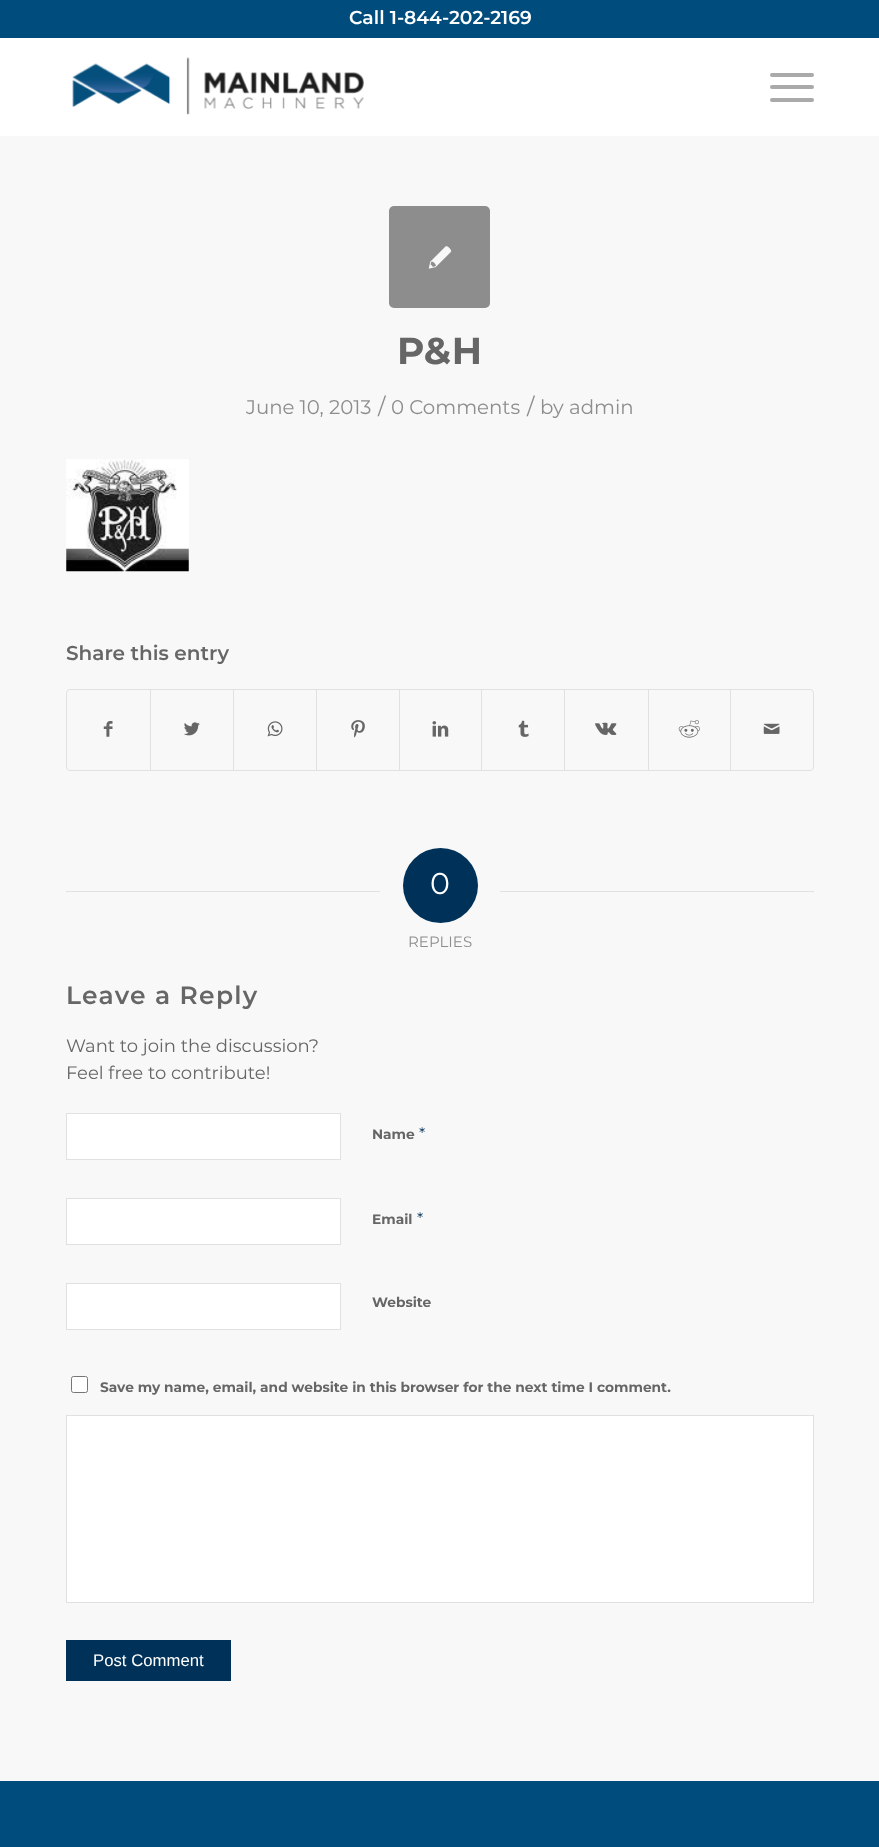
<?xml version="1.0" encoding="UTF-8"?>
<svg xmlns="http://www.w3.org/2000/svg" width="879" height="1847">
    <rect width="100%" height="100%" fill="#F8F8F8"/>
    <rect x="0" y="0" width="879" height="38" fill="#004D7D"/>
    <text x="349" y="24" font-family="Montserrat" font-size="18.75" font-weight="600" fill="#FFFFFF">Call 1-844-202-2169</text>
    <rect x="0" y="38" width="879" height="98" fill="#FFFFFF"/>
    <image x="72" y="57" width="292" height="58" href="img_01.png"/>
    <rect x="770" y="85" width="44" height="4" rx="2" fill="#AAAAAA"/>
    <rect x="770" y="73" width="44" height="4" rx="2" fill="#AAAAAA"/>
    <rect x="770" y="98" width="44" height="4" rx="2" fill="#AAAAAA"/>
    <rect x="389" y="206" width="101" height="102" rx="5" fill="#8D8D8D"/>
    <image x="428" y="246" width="24" height="23" href="img_02.png"/>
    <text x="397" y="364" font-family="Montserrat" font-size="37.5" font-weight="700" letter-spacing="0.5" fill="#666666">P&amp;H</text>
    <text x="246" y="414" font-family="Montserrat" font-size="19.75" fill="#8D8D8D">June 10, 2013</text>
    <text x="378" y="414" font-family="Montserrat" font-size="22" fill="#8D8D8D">/</text>
    <text x="391" y="414" font-family="Montserrat" font-size="19.75" fill="#8D8D8D">0 Comments</text>
    <text x="527" y="414" font-family="Montserrat" font-size="22" fill="#8D8D8D">/</text>
    <text x="540" y="414" font-family="Montserrat" font-size="19.75" fill="#8D8D8D">by admin</text>
    <image x="66" y="459" width="123" height="113" href="img_03.png"/>
    <text x="66" y="660" font-family="Montserrat" font-size="20" font-weight="600" fill="#666666">Share this entry</text>
    <rect x="66.5" y="689.5" width="747" height="81" rx="3.5" fill="none" stroke="#E1E1E1"/>
    <image x="103" y="721" width="10" height="16" href="img_04.png"/>
    <rect x="150" y="690" width="1" height="80" fill="#E1E1E1"/>
    <image x="184" y="722" width="16" height="14" href="img_05.png"/>
    <rect x="233" y="690" width="1" height="80" fill="#E1E1E1"/>
    <image x="267" y="721" width="16" height="16" href="img_06.png"/>
    <rect x="316" y="690" width="1" height="80" fill="#E1E1E1"/>
    <image x="351" y="720" width="14" height="18" href="img_07.png"/>
    <rect x="399" y="690" width="1" height="80" fill="#E1E1E1"/>
    <image x="432" y="721" width="17" height="16" href="img_08.png"/>
    <rect x="481" y="690" width="1" height="80" fill="#E1E1E1"/>
    <image x="518" y="720" width="11" height="17" href="img_09.png"/>
    <rect x="564" y="690" width="1" height="80" fill="#E1E1E1"/>
    <image x="595" y="722" width="22" height="13" href="img_10.png"/>
    <rect x="648" y="690" width="1" height="80" fill="#E1E1E1"/>
    <image x="678" y="720" width="22" height="18" href="img_11.png"/>
    <rect x="730" y="690" width="1" height="80" fill="#E1E1E1"/>
    <image x="763" y="723" width="17" height="11" href="img_12.png"/>
    <rect x="66" y="891" width="314" height="1" fill="#E1E1E1"/>
    <circle cx="440.5" cy="885.5" r="37.5" fill="#003259"/>
    <text x="430" y="894" font-family="Montserrat" font-size="30" fill="#FFFFFF">0</text>
    <rect x="500" y="891" width="314" height="1" fill="#E1E1E1"/>
    <text x="408" y="947" font-family="Montserrat" font-size="15" fill="#8D8D8D">REPLIES</text>
    <text x="66" y="1004" font-family="Montserrat" font-size="25" font-weight="600" letter-spacing="1.25" fill="#666666">Leave a Reply</text>
    <text font-family="Montserrat" font-size="18" fill="#666666">
        <tspan x="66" y="1052">Want to join the discussion?</tspan>
        <tspan x="66" y="1079">Feel free to contribute!</tspan>
    </text>
    <rect x="66.5" y="1113.5" width="274" height="46" fill="#FFFFFF" stroke="#E1E1E1"/>
    <text x="372" y="1139" font-family="Montserrat" font-size="13.75" font-weight="700" fill="#666666">Name</text>
    <text x="419" y="1139" font-family="Montserrat" font-size="16" fill="#003259">*</text>
    <rect x="66.5" y="1198.5" width="274" height="46" fill="#FFFFFF" stroke="#E1E1E1"/>
    <text x="372" y="1224" font-family="Montserrat" font-size="13.75" font-weight="700" fill="#666666">Email</text>
    <text x="417" y="1224" font-family="Montserrat" font-size="16" fill="#003259">*</text>
    <rect x="66.5" y="1283.5" width="274" height="46" fill="#FFFFFF" stroke="#E1E1E1"/>
    <text x="372" y="1307" font-family="Montserrat" font-size="13.75" font-weight="700" fill="#666666">Website</text>
    <rect x="71.5" y="1376.5" width="16" height="16" rx="2" fill="#FFFFFF" stroke="#767676"/>
    <text x="100" y="1392" font-family="Montserrat" font-size="13.75" font-weight="700" fill="#666666">Save my name, email, and website in this browser for the next time I comment.</text>
    <rect x="66.5" y="1415.5" width="747" height="187" fill="#FFFFFF" stroke="#E1E1E1"/>
    <rect x="66" y="1640" width="165" height="41" fill="#003259"/>
    <text x="93" y="1666" font-family="Liberation Sans" font-size="16.75" fill="#FFFFFF">Post Comment</text>
    <rect x="0" y="1781" width="879" height="66" fill="#004D7D"/>
</svg>
